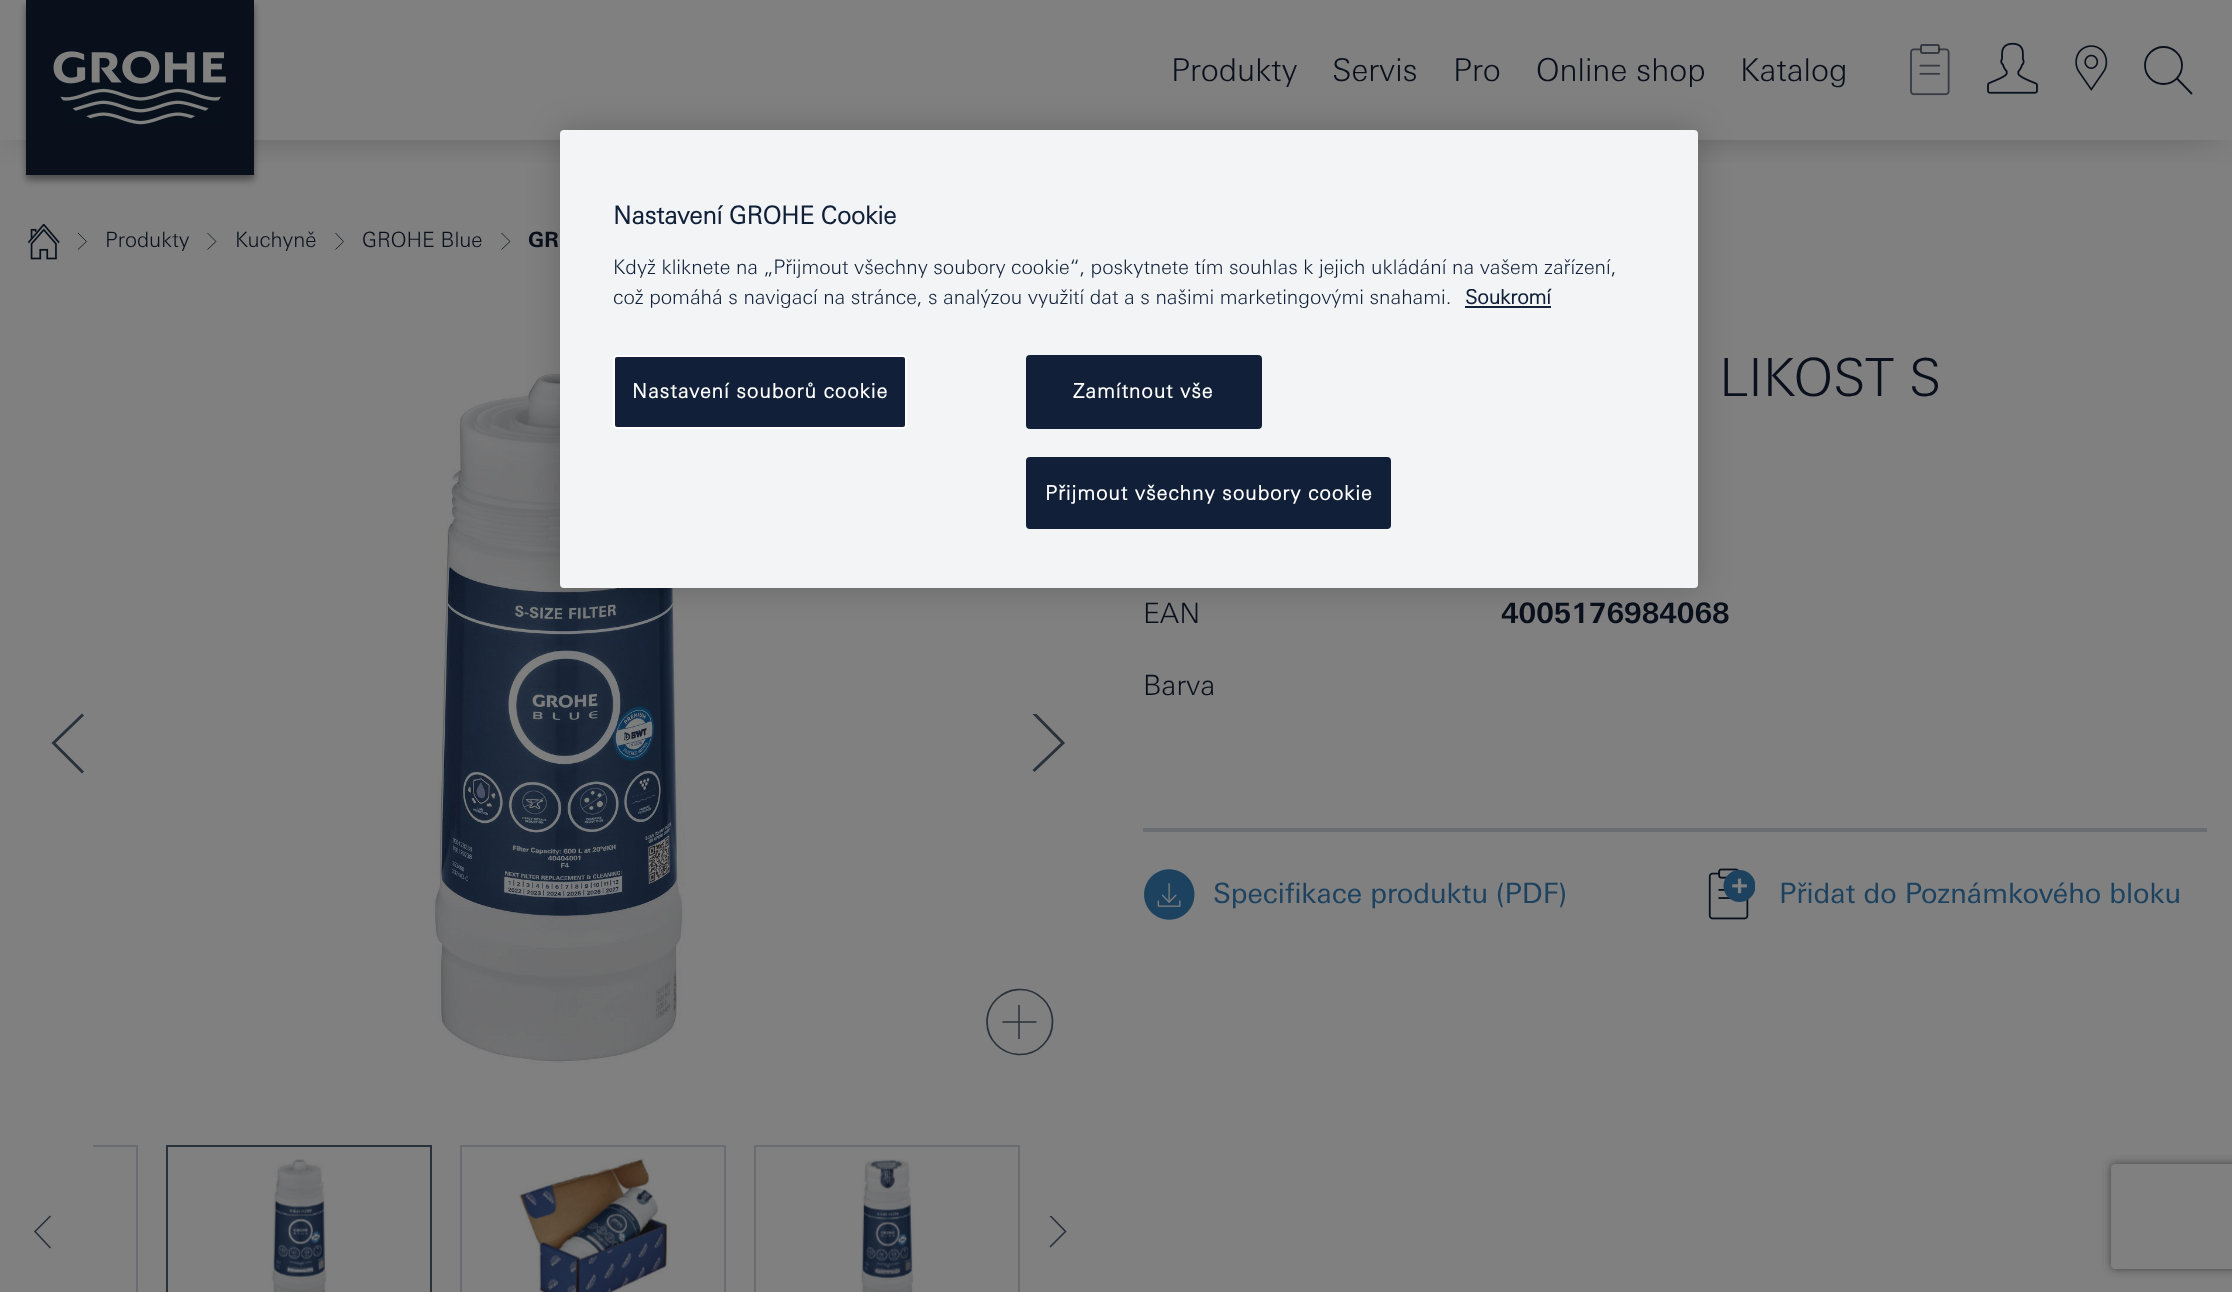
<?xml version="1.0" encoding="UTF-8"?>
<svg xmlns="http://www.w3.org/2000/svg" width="2232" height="1292">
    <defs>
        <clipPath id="clip1"><rect x="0" y="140" width="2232" height="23"/></clipPath>
        <filter id="blur1" x="-50%" y="-200%" width="200%" height="500%"><feGaussianBlur stdDeviation="21"/></filter>
        <filter id="blur2" x="-50%" y="-200%" width="200%" height="500%"><feGaussianBlur stdDeviation="3.5"/></filter>
        <clipPath id="clip2"><rect x="1031" y="714" width="35" height="60"/></clipPath>
        <clipPath id="clip3"><rect x="9" y="1127" width="1099" height="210"/></clipPath>
        <clipPath id="clip4"><rect x="1048" y="1216" width="20" height="34"/></clipPath>
        <filter id="blur3" x="-50%" y="-200%" width="200%" height="500%"><feGaussianBlur stdDeviation="16"/></filter>
        <clipPath id="clip5"><path d="M 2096 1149 H 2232 V 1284 H 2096 Z M 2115 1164 H 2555 C 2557 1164 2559 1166 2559 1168 V 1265 C 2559 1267 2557 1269 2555 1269 H 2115 C 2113 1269 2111 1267 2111 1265 V 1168 C 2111 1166 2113 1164 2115 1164 Z" clip-rule="evenodd"/></clipPath>
        <filter id="blur4" x="-50%" y="-200%" width="200%" height="500%"><feGaussianBlur stdDeviation="4.5"/></filter>
    </defs>
    <rect width="100%" height="100%" fill="#808080"/>
    <g clip-path="url(#clip1)">
        <rect x="18" y="23" width="2198" height="105" fill="#000000" fill-opacity="0.4" filter="url(#blur1)"/>
    </g>
    <rect x="26" y="5" width="228" height="175" fill="#000000" fill-opacity="0.4" filter="url(#blur2)"/>
    <rect x="26" y="0" width="228" height="175" fill="#09101C"/>
    <image x="53" y="51" width="173" height="74" href="img_01.png"/>
    <text x="1171" y="81" font-family="'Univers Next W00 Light'" font-size="31.5" font-weight="300" fill="#09101C">Produkty</text>
    <text x="1332" y="81" font-family="'Univers Next W00 Light'" font-size="31.5" font-weight="300" fill="#09101C">Servis</text>
    <text x="1453" y="81" font-family="'Univers Next W00 Light'" font-size="31.5" font-weight="300" fill="#09101C">Pro</text>
    <text x="1536" y="81" font-family="'Univers Next W00 Light'" font-size="31.5" font-weight="300" fill="#09101C">Online shop</text>
    <text x="1740" y="81" font-family="'Univers Next W00 Light'" font-size="31.5" font-weight="300" fill="#09101C">Katalog</text>
    <image x="1910" y="44" width="40" height="52" href="img_02.png"/>
    <image x="1987" y="42" width="51" height="52" href="img_03.png"/>
    <image x="2075" y="45" width="33" height="46" href="img_04.png"/>
    <path d="M 2192 94 L 2176.5 78 Z" fill="none" stroke="#09101C" stroke-width="1.8"/>
    <circle cx="2163.5" cy="65.5" r="18.5" fill="none" stroke="#09101C" stroke-width="1.8"/>
    <image x="28" y="224" width="32" height="36" href="img_05.png"/>
    <path d="M 78 233 L 86.5 241.5 L 78 249.5" fill="none" stroke="#09101C" stroke-width="0.8"/>
    <text x="105" y="247" font-family="'Univers Next W00 Light'" font-size="21" font-weight="300" fill="#09101C">Produkty</text>
    <path d="M 207.5 233 L 216 241.5 L 207.5 249.5" fill="none" stroke="#09101C" stroke-width="0.8"/>
    <text x="235" y="247" font-family="'Univers Next W00 Light'" font-size="21" font-weight="300" fill="#09101C">Kuchyně</text>
    <path d="M 335.5 233 L 343.5 241.5 L 335.5 249.5" fill="none" stroke="#09101C" stroke-width="0.8"/>
    <text x="362" y="247" font-family="'Univers Next W00 Light'" font-size="21" font-weight="300" fill="#09101C">GROHE Blue</text>
    <path d="M 501.5 233 L 510 241.5 L 501.5 249.5" fill="none" stroke="#09101C" stroke-width="0.8"/>
    <text x="528" y="247" font-family="'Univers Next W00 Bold'" font-size="21" font-weight="700" fill="#09101C">GR</text>
    <path d="M 83 772.5 L 53.5 743 L 83 714.5" fill="none" stroke="#29313A" stroke-width="2.9"/>
    <image x="433" y="371" width="252" height="693" href="img_06.png"/>
    <path d="M 1020 1054.5 C 1038 1054.5 1052.5 1040 1052.5 1022 C 1052.5 1004 1038 989.5 1020 989.5 C 1002 989.5 987 1004 987 1022 C 987 1040 1002 1054.5 1020 1054.5 Z" fill="none" stroke="#29313A" stroke-width="1.7"/>
    <path d="M 1002.5 1022 H 1036.5 M 1019 1005 V 1039" fill="none" stroke="#29313A" stroke-width="1.5"/>
    <g clip-path="url(#clip2)">
        <path d="M 1033.5 713 L 1063 743 L 1033.5 771" fill="none" stroke="#29313A" stroke-width="2.9"/>
    </g>
    <g clip-path="url(#clip3)">
        <rect x="-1" y="1146" width="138" height="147" fill="none" stroke="#696C70" stroke-width="2"/>
    </g>
    <rect x="167" y="1146" width="264" height="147" fill="none" stroke="#29313A" stroke-width="2"/>
    <image x="271" y="1159" width="56" height="133" href="img_07.png"/>
    <rect x="461" y="1146" width="264" height="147" fill="none" stroke="#696C70" stroke-width="2"/>
    <image x="519" y="1158" width="151" height="134" href="img_08.png"/>
    <rect x="755" y="1146" width="264" height="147" fill="none" stroke="#696C70" stroke-width="2"/>
    <image x="861" y="1159" width="53" height="133" href="img_09.png"/>
    <rect x="9" y="1145" width="84" height="2" fill="#808080"/>
    <path d="M 50.5 1248 L 35 1231.5 L 50.5 1216" fill="none" stroke="#29313A" stroke-width="1.6"/>
    <g clip-path="url(#clip4)">
        <path d="M 1050 1215.5 L 1065.5 1231.5 L 1050 1247" fill="none" stroke="#29313A" stroke-width="1.6"/>
    </g>
    <text x="1719" y="396" font-family="'Univers Next W00 Light'" font-size="52.5" font-weight="300" fill="#09101C">LIKOST S</text>
    <text x="1143" y="623" font-family="'Univers Next W00 Light'" font-size="28" font-weight="300" fill="#09101C">EAN</text>
    <text x="1501" y="623" font-family="'Univers Next W00 Bold'" font-size="28" font-weight="700" fill="#09101C">4005176984068</text>
    <text x="1143" y="695" font-family="'Univers Next W00 Light'" font-size="28" font-weight="300" fill="#09101C">Barva</text>
    <rect x="1143" y="828" width="1064" height="4" fill="#696C70"/>
    <image x="1144" y="869" width="51" height="51" href="img_10.png"/>
    <text x="1213" y="903" font-family="'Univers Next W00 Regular'" font-size="28" fill="#1D425F">Specifikace produktu (PDF)</text>
    <image x="1708" y="868" width="47" height="52" href="img_11.png"/>
    <text x="1779" y="903" font-family="'Univers Next W00 Regular'" font-size="28" fill="#1D425F">Přidat do Poznámkového bloku</text>
    <rect x="560" y="130" width="1138" height="458" rx="4" fill="#000000" fill-opacity="0.2" filter="url(#blur3)"/>
    <rect x="560" y="130" width="1138" height="458" rx="4" fill="#F2F4F6"/>
    <text x="613" y="224" font-family="'Univers Next W00 Light'" font-size="24.5" font-weight="700" fill="#112038">Nastavení GROHE Cookie</text>
    <text font-family="'Univers Next W00 Light'" font-size="19.92" font-weight="300" fill="#112038">
        <tspan x="613" y="274">Když kliknete na „Přijmout všechny soubory cookie“, poskytnete tím souhlas k jejich ukládání na vašem zařízení,</tspan>
        <tspan x="613" y="304">což pomáhá s navigací na stránce, s analýzou využití dat a s našimi marketingovými snahami.</tspan>
    </text>
    <text x="1465" y="304" font-family="'Univers Next W00 Light'" font-size="19.92" font-weight="700" fill="#112038">Soukromí</text>
    <rect x="1465" y="306" width="86" height="2" fill="#112038"/>
    <rect x="614" y="356" width="292" height="72" rx="3" fill="#112038" stroke="#FFFFFF" stroke-width="2"/>
    <text x="632" y="398" font-family="'Univers Next W00 Light'" font-size="19.92" font-weight="700" letter-spacing="1" fill="#FFFFFF">Nastavení souborů cookie</text>
    <rect x="1027" y="356" width="234" height="72" rx="3" fill="#112038" stroke="#112038" stroke-width="2"/>
    <text x="1073" y="398" font-family="'Univers Next W00 Light'" font-size="19.92" font-weight="700" letter-spacing="1" fill="#FFFFFF">Zamítnout vše</text>
    <rect x="1027" y="458" width="363" height="70" rx="3" fill="#112038" stroke="#112038" stroke-width="2"/>
    <text x="1045" y="500" font-family="'Univers Next W00 Light'" font-size="19.92" font-weight="700" letter-spacing="1" fill="#FFFFFF">Přijmout všechny soubory cookie</text>
    <g clip-path="url(#clip5)">
        <rect x="2111" y="1164" width="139" height="105" rx="4" fill="#404040" filter="url(#blur4)"/>
    </g>
</svg>
